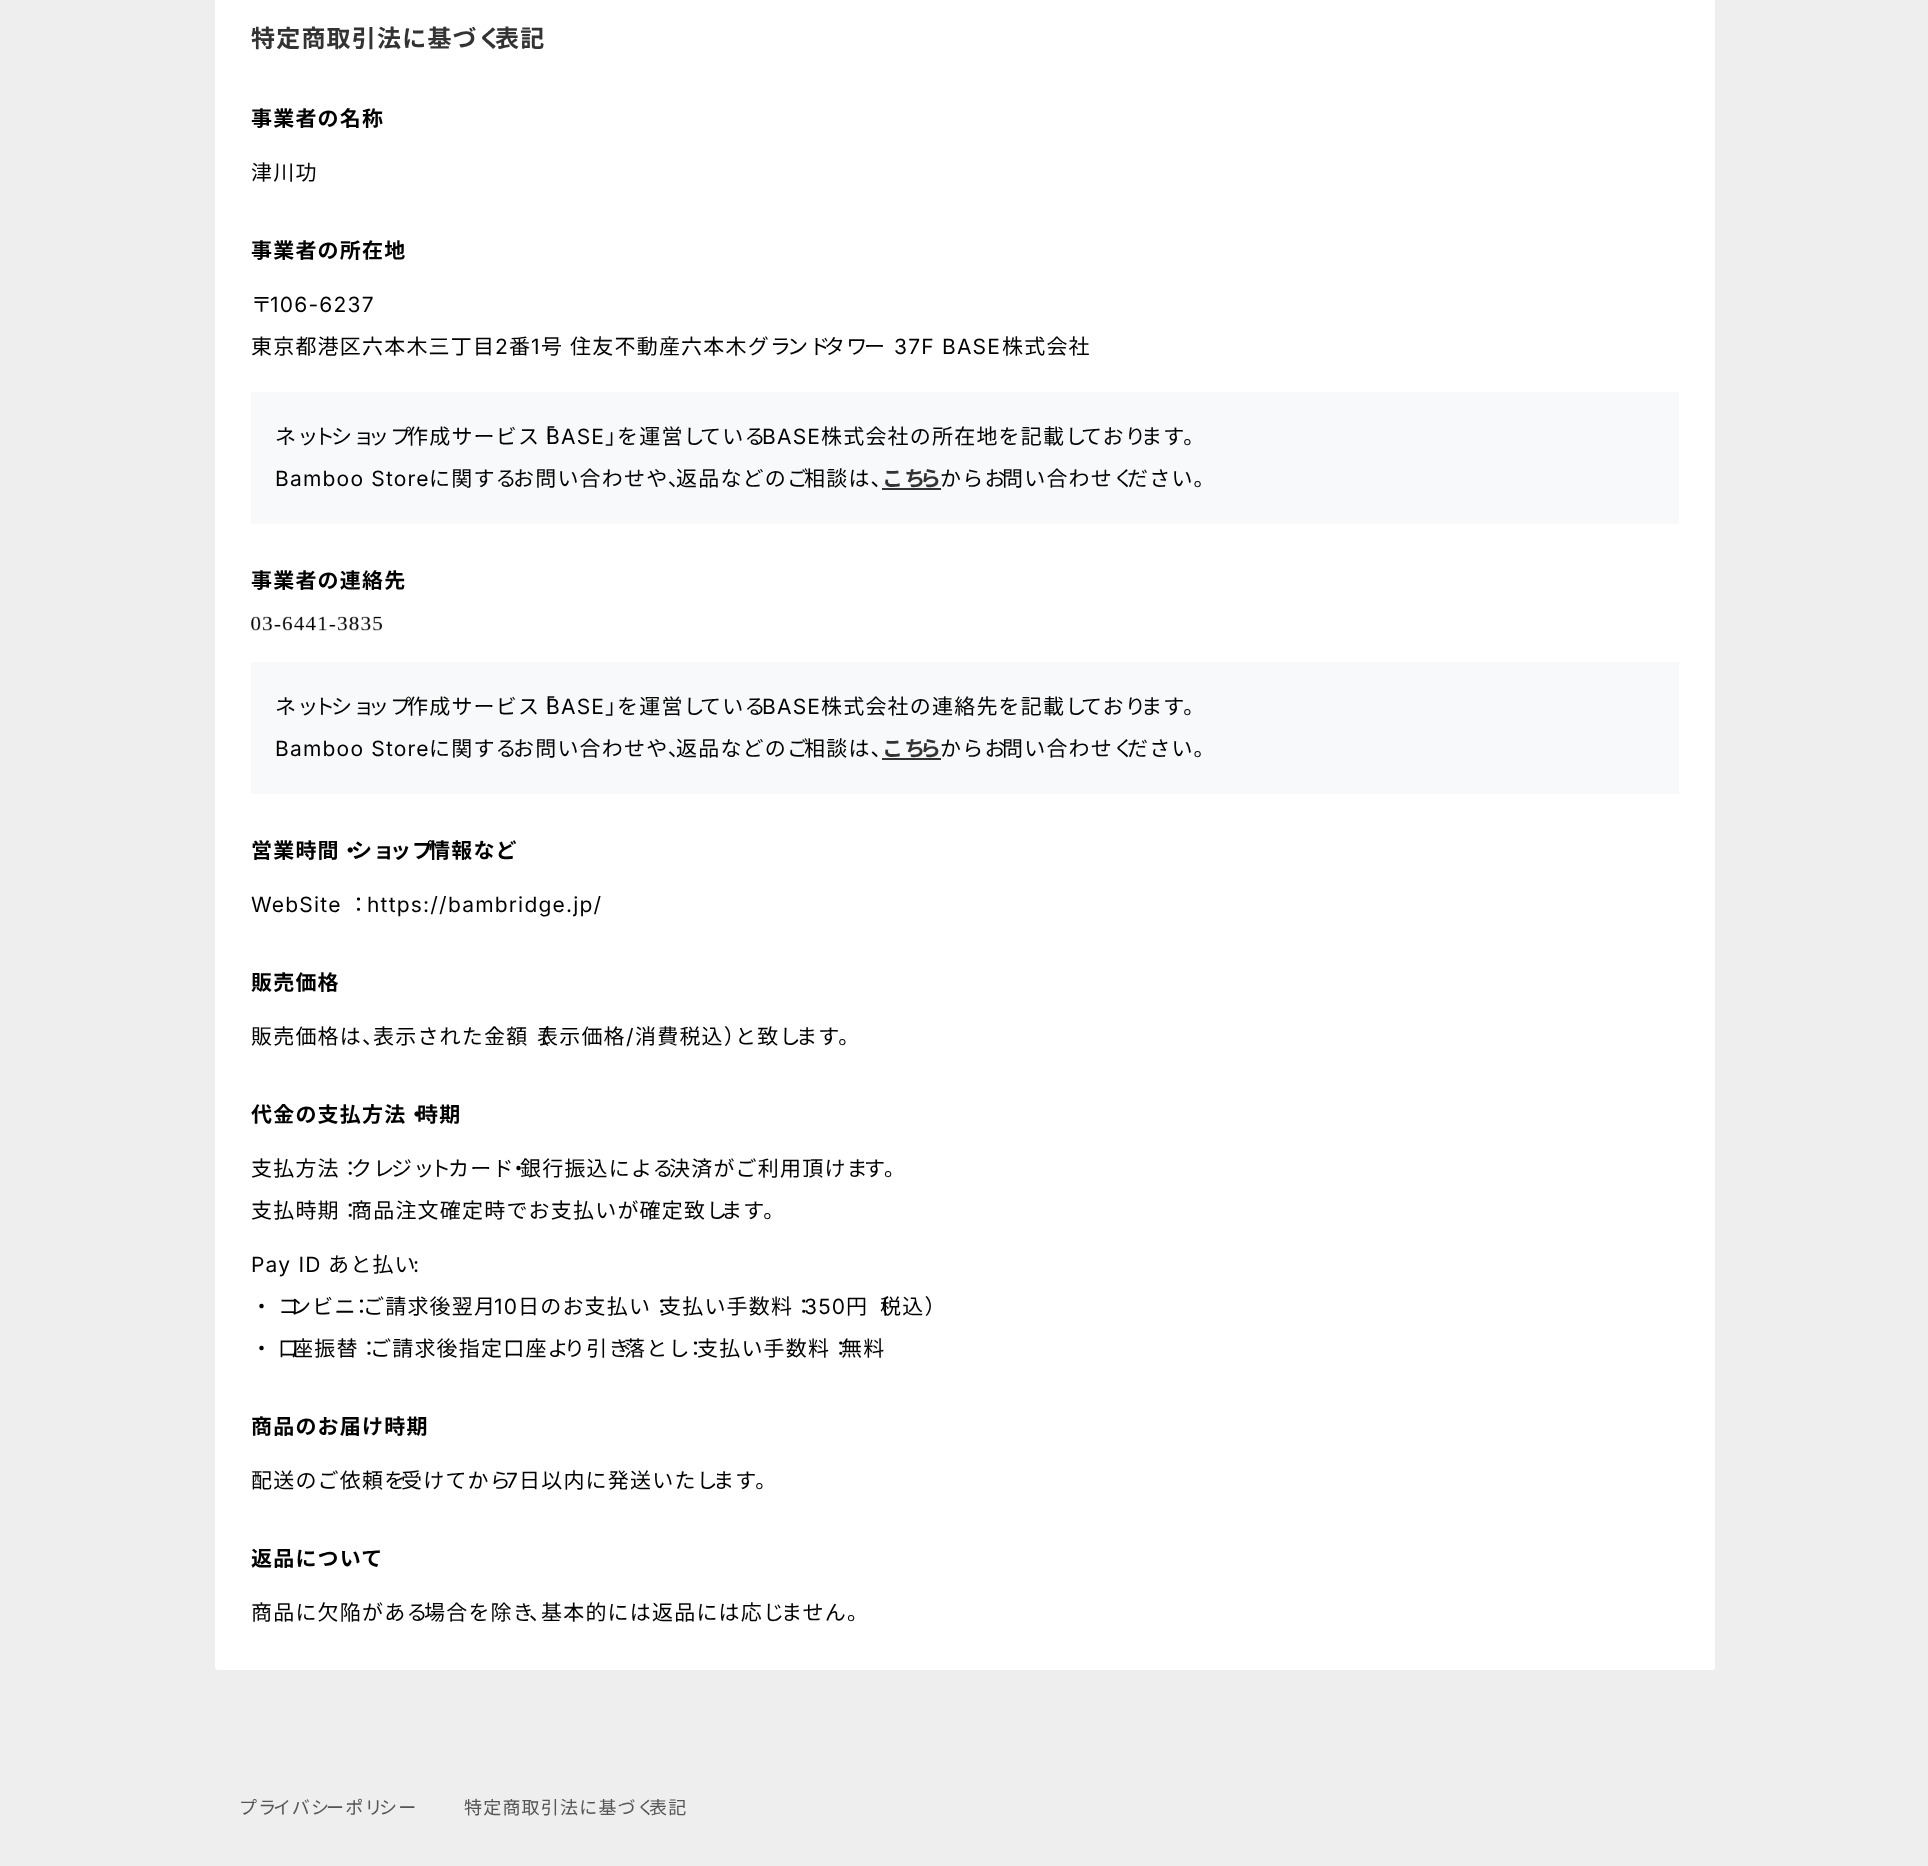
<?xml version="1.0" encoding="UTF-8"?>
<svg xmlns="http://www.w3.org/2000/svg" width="1928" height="1866">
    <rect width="100%" height="100%" fill="#EEEEEE"/>
    <rect x="215" y="-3" width="1500" height="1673" rx="3" fill="#FFFFFF"/>
    <text x="251" y="47" font-family="Noto Sans JP" font-size="24" font-weight="700" letter-spacing="1.2" fill="#333333">特定商取引法に基づく</text>
    <text x="495" y="47" font-family="Noto Sans JP" font-size="24" font-weight="700" letter-spacing="1.2" fill="#333333">表記</text>
    <text x="251" y="126" font-family="Noto Sans JP" font-size="21" font-weight="700" letter-spacing="1.2" fill="#000000">事業者の名称</text>
    <text x="251" y="180" font-family="Noto Sans JP" font-size="21" letter-spacing="1.2" fill="#000000">津川功</text>
    <text x="251" y="258" font-family="Noto Sans JP" font-size="21" font-weight="700" letter-spacing="1.2" fill="#000000">事業者の所在地</text>
    <text x="251" y="312" font-family="Noto Sans JP" font-size="21" letter-spacing="1.2" fill="#000000">〒</text>
    <text x="270" y="312" font-family="Inter" font-size="21" letter-spacing="1.2" fill="#000000">106-6237</text>
    <text x="251" y="354" font-family="Noto Sans JP" font-size="21" letter-spacing="1.2" fill="#000000">東京都港区六本木三丁目</text>
    <text x="495" y="354" font-family="Inter" font-size="21" letter-spacing="1.2" fill="#000000">2</text>
    <text x="509" y="354" font-family="Noto Sans JP" font-size="21" letter-spacing="1.2" fill="#000000">番</text>
    <text x="531" y="354" font-family="Inter" font-size="21" letter-spacing="1.2" fill="#000000">1</text>
    <text x="541" y="354" word-spacing="1" font-family="Noto Sans JP" font-size="21" letter-spacing="1.2" fill="#000000">号 住友不動産六本木グラ</text>
    <text x="787" y="354" word-spacing="1" font-family="Noto Sans JP" font-size="21" letter-spacing="1.2" fill="#000000">ンド</text>
    <text x="824" y="354" word-spacing="1" font-family="Noto Sans JP" font-size="21" letter-spacing="1.2" fill="#000000">タワ</text>
    <text x="864" y="354" word-spacing="1" font-family="Noto Sans JP" font-size="21" letter-spacing="1.2" fill="#000000">ー</text>
    <text x="894" y="354" font-family="Inter" font-size="21" letter-spacing="1.2" fill="#000000">37F BASE</text>
    <text x="1002" y="354" font-family="Noto Sans JP" font-size="21" letter-spacing="1.2" fill="#000000">株式会社</text>
    <rect x="251" y="392" width="1428" height="132" fill="#F8F9FA"/>
    <text x="275" y="444" font-family="Noto Sans JP" font-size="21" letter-spacing="1.2" fill="#000000">ネッ</text>
    <text x="314" y="444" font-family="Noto Sans JP" font-size="21" letter-spacing="1.2" fill="#000000">ト</text>
    <text x="331" y="444" font-family="Noto Sans JP" font-size="21" letter-spacing="1.2" fill="#000000">ショ</text>
    <text x="368" y="444" font-family="Noto Sans JP" font-size="21" letter-spacing="1.2" fill="#000000">ップ</text>
    <text x="407" y="444" font-family="Noto Sans JP" font-size="21" letter-spacing="1.2" fill="#000000">作成サービス</text>
    <text x="534" y="444" font-family="Noto Sans JP" font-size="21" letter-spacing="1.2" fill="#000000">「</text>
    <text x="546" y="444" font-family="Inter" font-size="21" letter-spacing="1.2" fill="#000000">BASE</text>
    <text x="605" y="444" font-family="Noto Sans JP" font-size="21" letter-spacing="1.2" fill="#000000">」</text>
    <text x="617" y="444" font-family="Noto Sans JP" font-size="21" letter-spacing="1.2" fill="#000000">を運営し</text>
    <text x="700" y="444" font-family="Noto Sans JP" font-size="21" letter-spacing="1.2" fill="#000000">ている</text>
    <text x="762" y="444" font-family="Inter" font-size="21" letter-spacing="1.2" fill="#000000">BASE</text>
    <text x="821" y="444" font-family="Noto Sans JP" font-size="21" letter-spacing="1.2" fill="#000000">株式会社の所在地を記載し</text>
    <text x="1081" y="444" font-family="Noto Sans JP" font-size="21" letter-spacing="1.2" fill="#000000">ており</text>
    <text x="1141" y="444" font-family="Noto Sans JP" font-size="21" letter-spacing="1.2" fill="#000000">ます。</text>
    <text x="275" y="486" font-family="Inter" font-size="21" letter-spacing="1.2" fill="#000000">Bamboo Store</text>
    <text x="429" y="486" font-family="Noto Sans JP" font-size="21" letter-spacing="1.2" fill="#000000">に関する</text>
    <text x="513" y="486" font-family="Noto Sans JP" font-size="21" letter-spacing="1.2" fill="#000000">お問い合わせや、</text>
    <text x="676" y="486" font-family="Noto Sans JP" font-size="21" letter-spacing="1.2" fill="#000000">返品などのご</text>
    <text x="804" y="486" font-family="Noto Sans JP" font-size="21" letter-spacing="1.2" fill="#000000">相談は、</text>
    <text x="882" y="486" font-family="Noto Sans JP" font-size="21" font-weight="700" letter-spacing="1.2" fill="#333333">こち</text>
    <text x="920" y="486" font-family="Noto Sans JP" font-size="21" font-weight="700" letter-spacing="1.2" fill="#333333">ら</text>
    <rect x="882" y="488" width="59" height="2" fill="#333333"/>
    <text x="940" y="486" font-family="Noto Sans JP" font-size="21" letter-spacing="1.2" fill="#000000">からお</text>
    <text x="1002" y="486" font-family="Noto Sans JP" font-size="21" letter-spacing="1.2" fill="#000000">問い合わせく</text>
    <text x="1127" y="486" font-family="Noto Sans JP" font-size="21" letter-spacing="1.2" fill="#000000">ださい。</text>
    <text x="251" y="588" font-family="Noto Sans JP" font-size="21" font-weight="700" letter-spacing="1.2" fill="#000000">事業者の連絡先</text>
    <image x="251" y="616" width="132" height="15" href="img_01.png"/>
    <rect x="251" y="662" width="1428" height="132" fill="#F8F9FA"/>
    <text x="275" y="714" font-family="Noto Sans JP" font-size="21" letter-spacing="1.2" fill="#000000">ネッ</text>
    <text x="314" y="714" font-family="Noto Sans JP" font-size="21" letter-spacing="1.2" fill="#000000">ト</text>
    <text x="331" y="714" font-family="Noto Sans JP" font-size="21" letter-spacing="1.2" fill="#000000">ショ</text>
    <text x="368" y="714" font-family="Noto Sans JP" font-size="21" letter-spacing="1.2" fill="#000000">ップ</text>
    <text x="407" y="714" font-family="Noto Sans JP" font-size="21" letter-spacing="1.2" fill="#000000">作成サービス</text>
    <text x="534" y="714" font-family="Noto Sans JP" font-size="21" letter-spacing="1.2" fill="#000000">「</text>
    <text x="546" y="714" font-family="Inter" font-size="21" letter-spacing="1.2" fill="#000000">BASE</text>
    <text x="605" y="714" font-family="Noto Sans JP" font-size="21" letter-spacing="1.2" fill="#000000">」</text>
    <text x="617" y="714" font-family="Noto Sans JP" font-size="21" letter-spacing="1.2" fill="#000000">を運営し</text>
    <text x="700" y="714" font-family="Noto Sans JP" font-size="21" letter-spacing="1.2" fill="#000000">ている</text>
    <text x="762" y="714" font-family="Inter" font-size="21" letter-spacing="1.2" fill="#000000">BASE</text>
    <text x="821" y="714" font-family="Noto Sans JP" font-size="21" letter-spacing="1.2" fill="#000000">株式会社の連絡先を記載し</text>
    <text x="1081" y="714" font-family="Noto Sans JP" font-size="21" letter-spacing="1.2" fill="#000000">ており</text>
    <text x="1141" y="714" font-family="Noto Sans JP" font-size="21" letter-spacing="1.2" fill="#000000">ます。</text>
    <text x="275" y="756" font-family="Inter" font-size="21" letter-spacing="1.2" fill="#000000">Bamboo Store</text>
    <text x="429" y="756" font-family="Noto Sans JP" font-size="21" letter-spacing="1.2" fill="#000000">に関する</text>
    <text x="513" y="756" font-family="Noto Sans JP" font-size="21" letter-spacing="1.2" fill="#000000">お問い合わせや、</text>
    <text x="676" y="756" font-family="Noto Sans JP" font-size="21" letter-spacing="1.2" fill="#000000">返品などのご</text>
    <text x="804" y="756" font-family="Noto Sans JP" font-size="21" letter-spacing="1.2" fill="#000000">相談は、</text>
    <text x="882" y="756" font-family="Noto Sans JP" font-size="21" font-weight="700" letter-spacing="1.2" fill="#333333">こち</text>
    <text x="920" y="756" font-family="Noto Sans JP" font-size="21" font-weight="700" letter-spacing="1.2" fill="#333333">ら</text>
    <rect x="882" y="758" width="59" height="2" fill="#333333"/>
    <text x="940" y="756" font-family="Noto Sans JP" font-size="21" letter-spacing="1.2" fill="#000000">からお</text>
    <text x="1002" y="756" font-family="Noto Sans JP" font-size="21" letter-spacing="1.2" fill="#000000">問い合わせく</text>
    <text x="1127" y="756" font-family="Noto Sans JP" font-size="21" letter-spacing="1.2" fill="#000000">ださい。</text>
    <text x="251" y="858" font-family="Noto Sans JP" font-size="21" font-weight="700" letter-spacing="1.2" fill="#000000">営業時間・</text>
    <text x="351" y="858" font-family="Noto Sans JP" font-size="21" font-weight="700" letter-spacing="1.2" fill="#000000">ショ</text>
    <text x="390" y="858" font-family="Noto Sans JP" font-size="21" font-weight="700" letter-spacing="1.2" fill="#000000">ップ</text>
    <text x="429" y="858" font-family="Noto Sans JP" font-size="21" font-weight="700" letter-spacing="1.2" fill="#000000">情報など</text>
    <text x="251" y="912" font-family="Inter" font-size="21" letter-spacing="1.2" fill="#000000">WebSite</text>
    <text x="348" y="912" font-family="Noto Sans JP" font-size="21" letter-spacing="1.2" fill="#000000">：</text>
    <text x="367" y="912" font-family="Inter" font-size="21" letter-spacing="1.2" fill="#000000">https://bambridge.jp/</text>
    <text x="251" y="990" font-family="Noto Sans JP" font-size="21" font-weight="700" letter-spacing="1.2" fill="#000000">販売価格</text>
    <text x="251" y="1044" font-family="Noto Sans JP" font-size="21" letter-spacing="1.2" fill="#000000">販売価格は、</text>
    <text x="373" y="1044" font-family="Noto Sans JP" font-size="21" letter-spacing="1.2" fill="#000000">表示された金額（</text>
    <text x="537" y="1044" font-family="Noto Sans JP" font-size="21" letter-spacing="1.2" fill="#000000">表示価格</text>
    <text x="626" y="1044" font-family="Inter" font-size="21" letter-spacing="1.2" fill="#000000">/</text>
    <text x="635" y="1044" font-family="Noto Sans JP" font-size="21" letter-spacing="1.2" fill="#000000">消費税込）</text>
    <text x="735" y="1044" font-family="Noto Sans JP" font-size="21" letter-spacing="1.2" fill="#000000">と致し</text>
    <text x="796" y="1044" font-family="Noto Sans JP" font-size="21" letter-spacing="1.2" fill="#000000">ます。</text>
    <text x="251" y="1122" font-family="Noto Sans JP" font-size="21" font-weight="700" letter-spacing="1.2" fill="#000000">代金の支払方法・</text>
    <text x="417" y="1122" font-family="Noto Sans JP" font-size="21" font-weight="700" letter-spacing="1.2" fill="#000000">時期</text>
    <text x="251" y="1176" font-family="Noto Sans JP" font-size="21" letter-spacing="1.2" fill="#000000">支払方法：</text>
    <text x="351" y="1176" font-family="Noto Sans JP" font-size="21" letter-spacing="1.2" fill="#000000">クレ</text>
    <text x="391" y="1176" font-family="Noto Sans JP" font-size="21" letter-spacing="1.2" fill="#000000">ジッ</text>
    <text x="430" y="1176" font-family="Noto Sans JP" font-size="21" letter-spacing="1.2" fill="#000000">ト</text>
    <text x="448" y="1176" font-family="Noto Sans JP" font-size="21" letter-spacing="1.2" fill="#000000">カード</text>
    <text x="508" y="1176" font-family="Noto Sans JP" font-size="21" letter-spacing="1.2" fill="#000000">・</text>
    <text x="520" y="1176" font-family="Noto Sans JP" font-size="21" letter-spacing="1.2" fill="#000000">銀行振込による</text>
    <text x="669" y="1176" font-family="Noto Sans JP" font-size="21" letter-spacing="1.2" fill="#000000">決済がご利用頂けま</text>
    <text x="864" y="1176" font-family="Noto Sans JP" font-size="21" letter-spacing="1.2" fill="#000000">す。</text>
    <text x="251" y="1218" font-family="Noto Sans JP" font-size="21" letter-spacing="1.2" fill="#000000">支払時期：</text>
    <text x="351" y="1218" font-family="Noto Sans JP" font-size="21" letter-spacing="1.2" fill="#000000">商品注文確定時でお支払いが確定致し</text>
    <text x="721" y="1218" font-family="Noto Sans JP" font-size="21" letter-spacing="1.2" fill="#000000">ます。</text>
    <text x="251" y="1272" font-family="Inter" font-size="21" letter-spacing="1.2" fill="#000000">Pay ID</text>
    <text x="328" y="1272" font-family="Noto Sans JP" font-size="21" letter-spacing="1.2" fill="#000000">あと払い</text>
    <text x="413" y="1272" font-family="Inter" font-size="21" letter-spacing="1.2" fill="#000000">:</text>
    <text x="251" y="1314" word-spacing="1" font-family="Noto Sans JP" font-size="21" letter-spacing="1.2" fill="#000000">・</text>
    <text x="278" y="1314" word-spacing="1" font-family="Noto Sans JP" font-size="21" letter-spacing="1.2" fill="#000000">コ</text>
    <text x="290" y="1314" word-spacing="1" font-family="Noto Sans JP" font-size="21" letter-spacing="1.2" fill="#000000">ンビニ</text>
    <text x="351" y="1314" word-spacing="1" font-family="Noto Sans JP" font-size="21" letter-spacing="1.2" fill="#000000">：</text>
    <text x="363" y="1314" word-spacing="1" font-family="Noto Sans JP" font-size="21" letter-spacing="1.2" fill="#000000">ご請求後翌月</text>
    <text x="494" y="1314" font-family="Inter" font-size="21" letter-spacing="1.2" fill="#000000">10</text>
    <text x="518" y="1314" font-family="Noto Sans JP" font-size="21" letter-spacing="1.2" fill="#000000">日のお支払い：</text>
    <text x="660" y="1314" font-family="Noto Sans JP" font-size="21" letter-spacing="1.2" fill="#000000">支払い手数料：</text>
    <text x="804" y="1314" font-family="Inter" font-size="21" letter-spacing="1.2" fill="#000000">350</text>
    <text x="846" y="1314" font-family="Noto Sans JP" font-size="21" letter-spacing="1.2" fill="#000000">円（</text>
    <text x="880" y="1314" font-family="Noto Sans JP" font-size="21" letter-spacing="1.2" fill="#000000">税込）</text>
    <text x="251" y="1356" word-spacing="1" font-family="Noto Sans JP" font-size="21" letter-spacing="1.2" fill="#000000">・</text>
    <text x="278" y="1356" word-spacing="1" font-family="Noto Sans JP" font-size="21" letter-spacing="1.2" fill="#000000">口</text>
    <text x="292" y="1356" word-spacing="1" font-family="Noto Sans JP" font-size="21" letter-spacing="1.2" fill="#000000">座振替：</text>
    <text x="370" y="1356" word-spacing="1" font-family="Noto Sans JP" font-size="21" letter-spacing="1.2" fill="#000000">ご請求後指定口座よ</text>
    <text x="564" y="1356" word-spacing="1" font-family="Noto Sans JP" font-size="21" letter-spacing="1.2" fill="#000000">り引き</text>
    <text x="624" y="1356" word-spacing="1" font-family="Noto Sans JP" font-size="21" letter-spacing="1.2" fill="#000000">落とし</text>
    <text x="685" y="1356" word-spacing="1" font-family="Noto Sans JP" font-size="21" letter-spacing="1.2" fill="#000000">：</text>
    <text x="697" y="1356" word-spacing="1" font-family="Noto Sans JP" font-size="21" letter-spacing="1.2" fill="#000000">支払い手数料：</text>
    <text x="841" y="1356" word-spacing="1" font-family="Noto Sans JP" font-size="21" letter-spacing="1.2" fill="#000000">無料</text>
    <text x="251" y="1434" font-family="Noto Sans JP" font-size="21" font-weight="700" letter-spacing="1.2" fill="#000000">商品のお届け時期</text>
    <text x="251" y="1488" font-family="Noto Sans JP" font-size="21" letter-spacing="1.2" fill="#000000">配送のご依頼を</text>
    <text x="401" y="1488" font-family="Noto Sans JP" font-size="21" letter-spacing="1.2" fill="#000000">受けてから</text>
    <text x="506" y="1488" font-family="Inter" font-size="21" letter-spacing="1.2" fill="#000000">7</text>
    <text x="519" y="1488" font-family="Noto Sans JP" font-size="21" letter-spacing="1.2" fill="#000000">日以内に発送いたし</text>
    <text x="713" y="1488" font-family="Noto Sans JP" font-size="21" letter-spacing="1.2" fill="#000000">ます。</text>
    <text x="251" y="1566" font-family="Noto Sans JP" font-size="21" font-weight="700" letter-spacing="1.2" fill="#000000">返品について</text>
    <text x="251" y="1620" font-family="Noto Sans JP" font-size="21" letter-spacing="1.2" fill="#000000">商品に欠陥がある</text>
    <text x="424" y="1620" font-family="Noto Sans JP" font-size="21" letter-spacing="1.2" fill="#000000">場合を除き</text>
    <text x="529" y="1620" font-family="Noto Sans JP" font-size="21" letter-spacing="1.2" fill="#000000">、</text>
    <text x="541" y="1620" font-family="Noto Sans JP" font-size="21" letter-spacing="1.2" fill="#000000">基本的には返品には応じ</text>
    <text x="781" y="1620" font-family="Noto Sans JP" font-size="21" letter-spacing="1.2" fill="#000000">ません。</text>
    <text x="239" y="1814" font-family="Noto Sans JP" font-size="18" letter-spacing="1.2" fill="#555555">プラ</text>
    <text x="273" y="1814" font-family="Noto Sans JP" font-size="18" letter-spacing="1.2" fill="#555555">イバシ</text>
    <text x="326" y="1814" font-family="Noto Sans JP" font-size="18" letter-spacing="1.2" fill="#555555">ーポリ</text>
    <text x="379" y="1814" font-family="Noto Sans JP" font-size="18" letter-spacing="1.2" fill="#555555">シー</text>
    <text x="464" y="1814" font-family="Noto Sans JP" font-size="18" letter-spacing="1.2" fill="#555555">特定商取引法に基づく</text>
    <text x="649" y="1814" font-family="Noto Sans JP" font-size="18" letter-spacing="1.2" fill="#555555">表記</text>
</svg>
